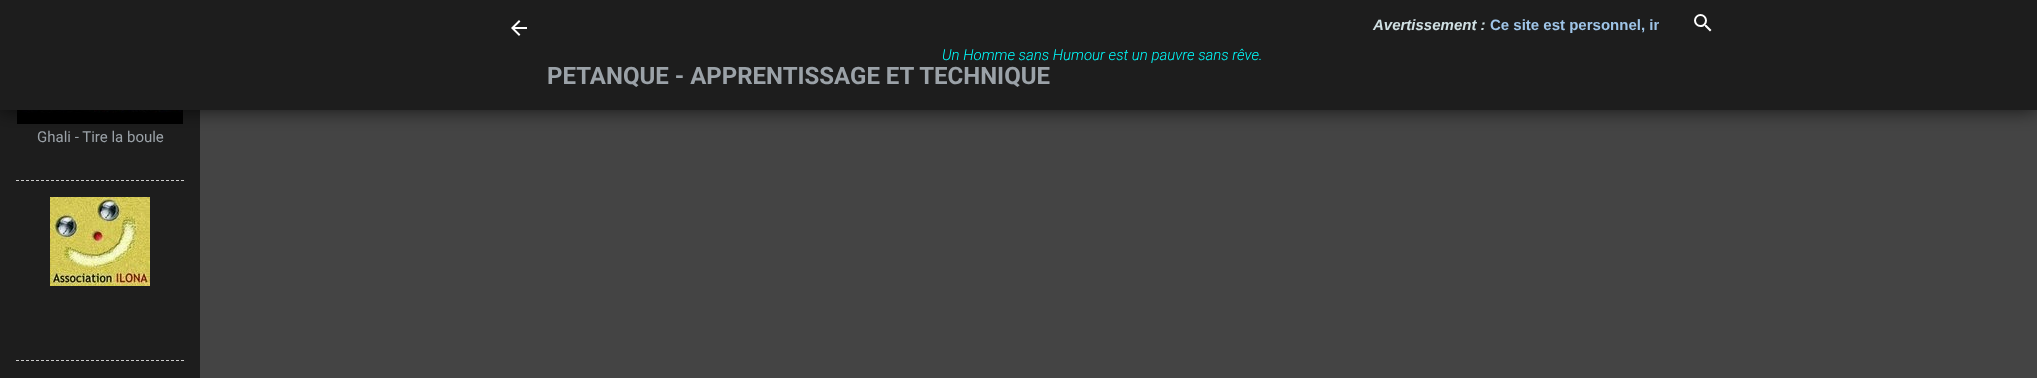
<?xml version="1.0" encoding="UTF-8"?>
<svg xmlns="http://www.w3.org/2000/svg" width="2037" height="378">
    <defs>
        <filter id="blur1" x="-50%" y="-200%" width="200%" height="500%"><feGaussianBlur stdDeviation="10"/></filter>
        <clipPath id="clip1"><rect x="547" y="16" width="1112" height="26"/></clipPath>
    </defs>
    <rect width="100%" height="100%" fill="#444444"/>
    <rect x="0" y="110" width="200" height="268" fill="#1D1D1D"/>
    <image x="17" y="110" width="166" height="14" href="img_03.png"/>
    <rect x="0" y="0" width="2037" height="110" fill="#000000" fill-opacity="0.7" filter="url(#blur1)"/>
    <rect x="0" y="0" width="2037" height="110" fill="#1D1D1D"/>
    <image x="511" y="20" width="16" height="16" href="img_01.png"/>
    <text x="1373" y="30" font-family="Liberation Sans" font-size="15" font-weight="700" font-style="italic" fill="#D0E0E3">Avertissement :</text>
    <g clip-path="url(#clip1)">
        <text x="1490" y="30" font-family="Liberation Sans" font-size="15" font-weight="700" fill="#9FC5E8">Ce site est personnel, in</text>
    </g>
    <text x="942" y="60" font-family="Roboto" font-size="15" font-weight="300" font-style="italic" fill="#00FFFF">Un Homme sans Humour est un pauvre sans rêve.</text>
    <text x="547" y="84" font-family="Roboto" font-size="24" font-weight="700" fill="#9BA2A8">PETANQUE - APPRENTISSAGE ET TECHNIQUE</text>
    <image x="1694" y="14" width="18" height="18" href="img_02.png"/>
    <text x="37" y="142" font-family="Roboto" font-size="15" fill="#9BA2A8">Ghali - Tire la boule</text>
    <path d="M 16 180.5 H 184" fill="none" stroke="#CCCCCC" stroke-dasharray="3 2"/>
    <image x="50" y="197" width="100" height="89" href="img_04.png"/>
    <path d="M 16 360.5 H 184" fill="none" stroke="#CCCCCC" stroke-dasharray="3 2"/>
</svg>
